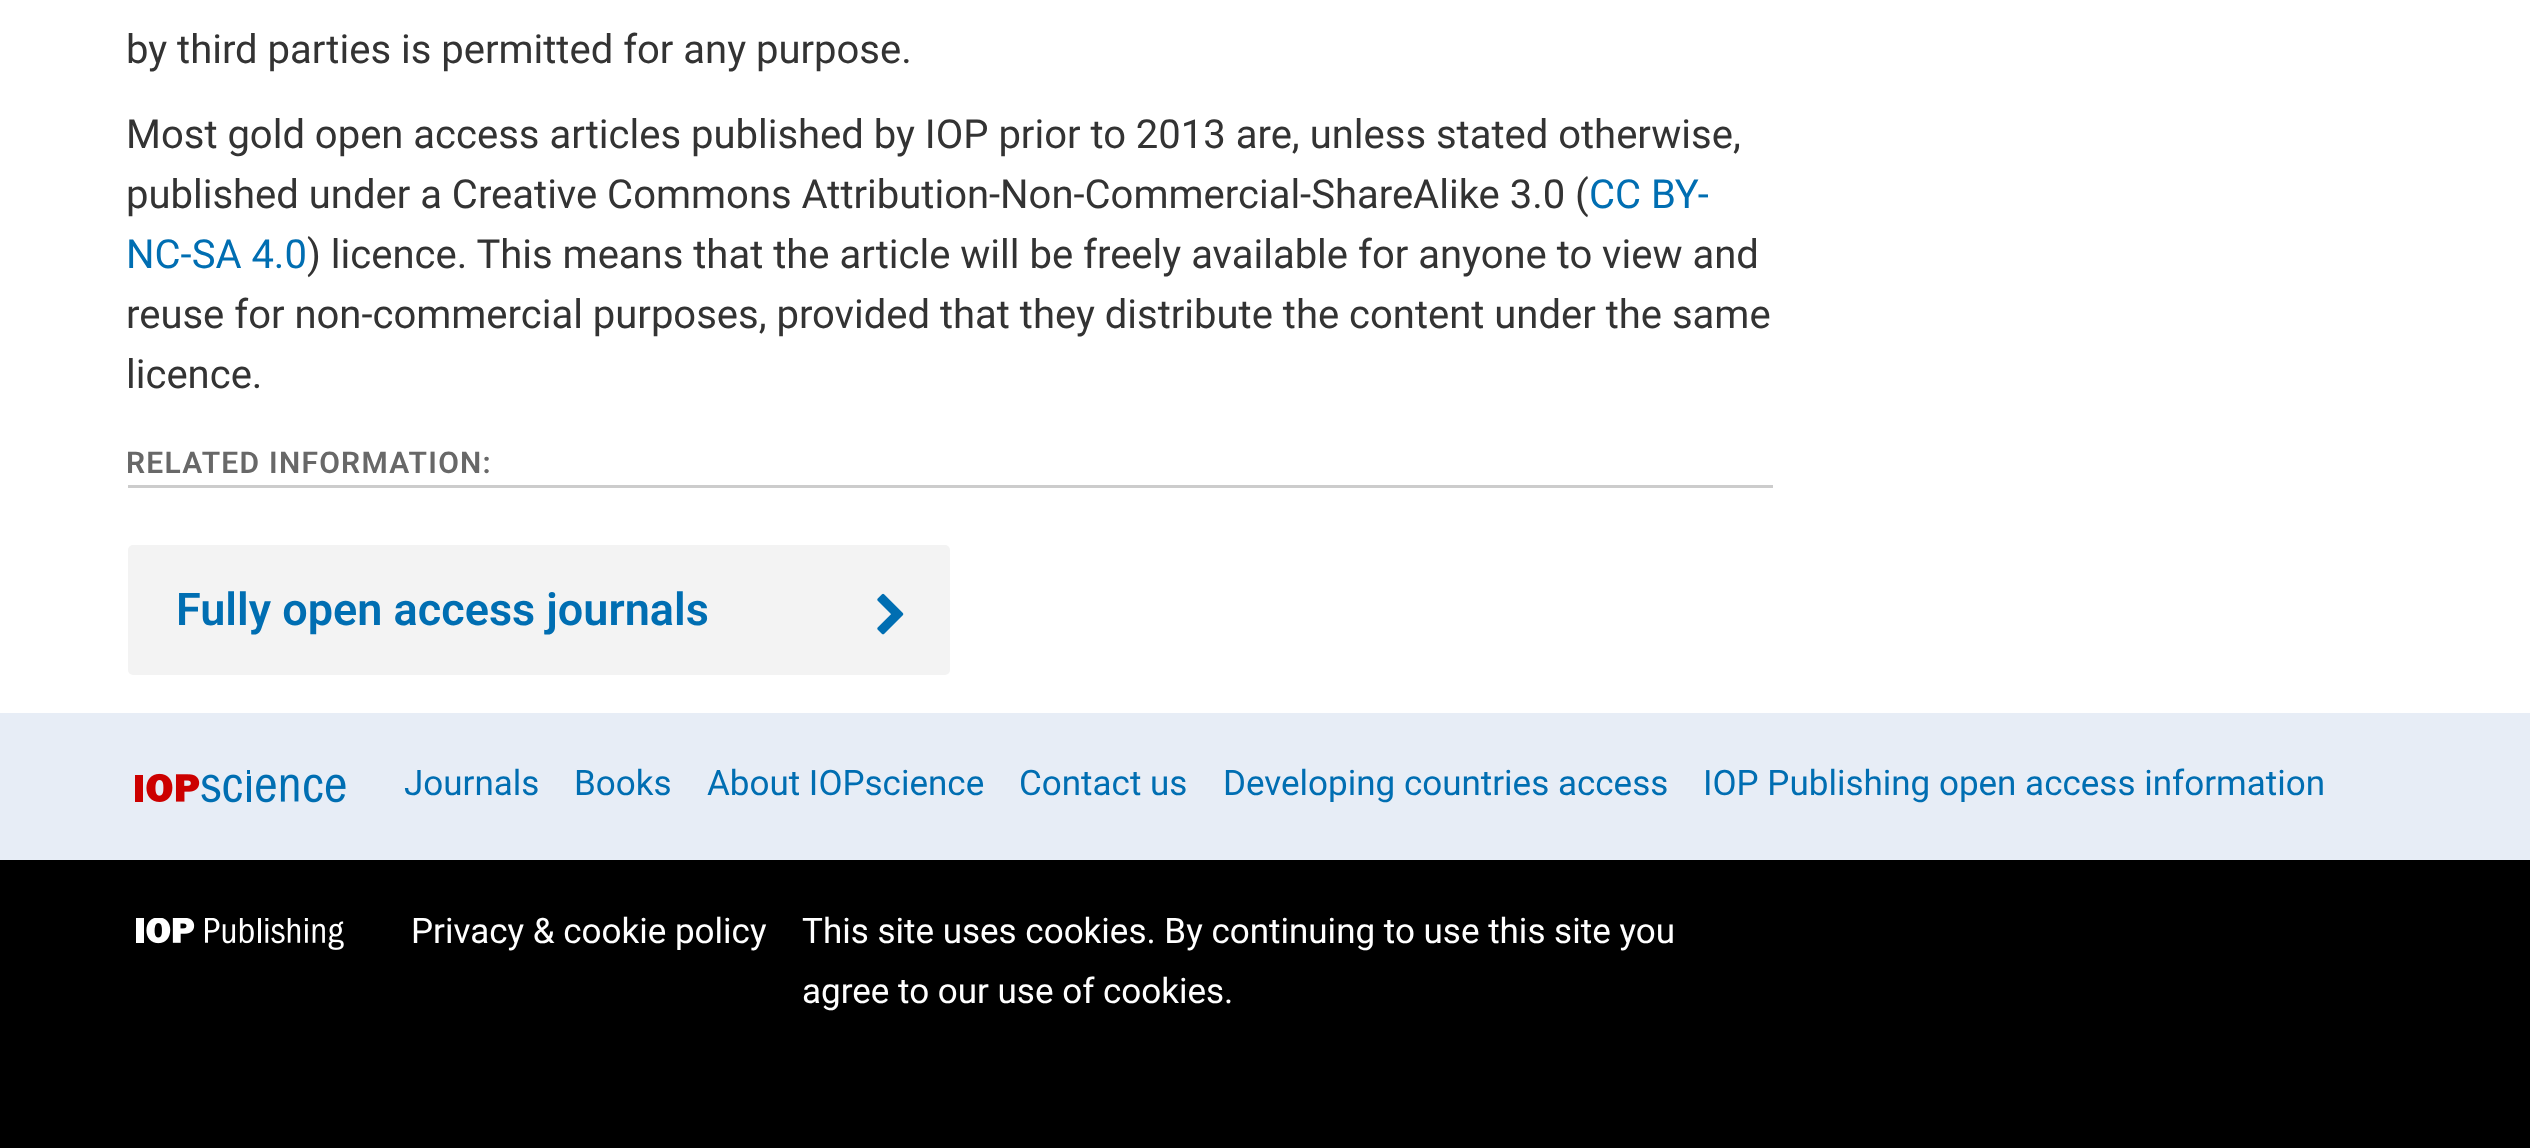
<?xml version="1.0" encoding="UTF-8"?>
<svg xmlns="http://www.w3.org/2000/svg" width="2530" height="1148">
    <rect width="100%" height="100%" fill="#FFFFFF"/>
    <text x="126" y="63" font-family="Roboto" font-size="40" fill="#333333">by third parties is permitted for any purpose.</text>
    <text font-family="Roboto" font-size="40" fill="#333333">
        <tspan x="126" y="148">Most gold open access articles published by IOP prior to 2013 are, unless stated otherwise,</tspan>
        <tspan x="126" y="208">published under a Creative Commons Attribution-Non-Commercial-ShareAlike 3.0 (</tspan>
    </text>
    <text x="1589" y="208" font-family="Roboto" font-size="40" fill="#006EB2">CC BY-</text>
    <text x="126" y="268" font-family="Roboto" font-size="40" fill="#006EB2">NC-SA 4.0</text>
    <text x="307" y="268" font-family="Roboto" font-size="40" fill="#333333">) licence. This means that the article will be freely available for anyone to view and</text>
    <text font-family="Roboto" font-size="40" fill="#333333">
        <tspan x="126" y="328">reuse for non-commercial purposes, provided that they distribute the content under the same</tspan>
        <tspan x="126" y="388">licence.</tspan>
    </text>
    <rect x="128" y="485" width="1645" height="3" fill="#CCCCCC"/>
    <text x="126" y="473" font-family="Roboto" font-size="30" font-weight="600" letter-spacing="1.25" fill="#686868">RELATED INFORMATION:</text>
    <rect x="128" y="545" width="822" height="130" rx="5" fill="#F3F3F3"/>
    <text x="176" y="625" font-family="Roboto" font-size="45" font-weight="600" fill="#006EB2">Fully open access journals</text>
    <image x="877" y="593" width="27" height="42" href="img_01.png"/>
    <rect x="0" y="713" width="2530" height="147" fill="#E7EDF6"/>
    <image x="135" y="770" width="211" height="33" href="img_02.png"/>
    <text x="404" y="795" font-family="Roboto" font-size="35" fill="#006EB2">Journals</text>
    <text x="574" y="795" font-family="Roboto" font-size="35" fill="#006EB2">Books</text>
    <text x="707" y="795" font-family="Roboto" font-size="35" fill="#006EB2">About IOPscience</text>
    <text x="1019" y="795" font-family="Roboto" font-size="35" fill="#006EB2">Contact us</text>
    <text x="1223" y="795" font-family="Roboto" font-size="35" fill="#006EB2">Developing countries access</text>
    <text x="1703" y="795" font-family="Roboto" font-size="35" fill="#006EB2">IOP Publishing open access information</text>
    <rect x="0" y="860" width="2530" height="288" fill="#000000"/>
    <image x="136" y="918" width="208" height="32" href="img_03.png"/>
    <text x="411" y="943" font-family="Roboto" font-size="35" fill="#FFFFFF">Privacy &amp; cookie policy</text>
    <text font-family="Roboto" font-size="35" fill="#FFFFFF">
        <tspan x="802" y="943">This site uses cookies. By continuing to use this site you</tspan>
        <tspan x="802" y="1003">agree to our use of cookies.</tspan>
    </text>
</svg>
